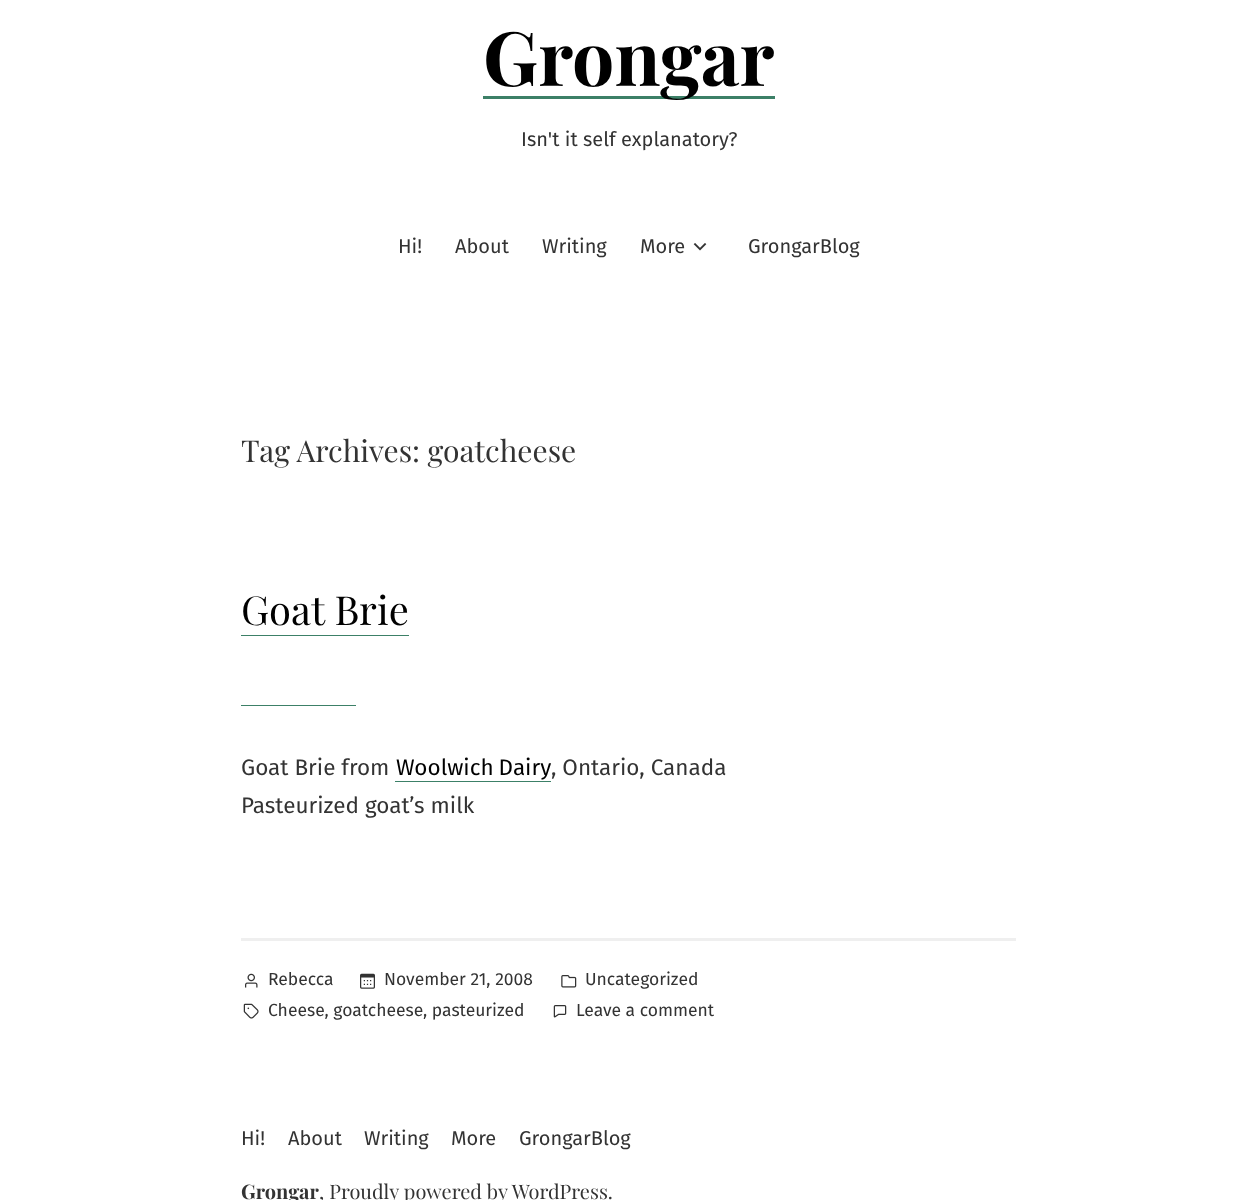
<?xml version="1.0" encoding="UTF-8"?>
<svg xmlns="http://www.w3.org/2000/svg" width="1257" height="1200">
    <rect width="100%" height="100%" fill="#FFFFFF"/>
    <rect x="483" y="96" width="292" height="3" fill="#3C8067"/>
    <text x="483" y="86" font-family="Playfair Display" font-size="75" font-weight="700" fill="#000000">Grongar</text>
    <text x="521" y="146" font-family="Fira Sans" font-size="20" fill="#333333">Isn't it self explanatory?</text>
    <text x="398" y="253" font-family="Fira Sans" font-size="20" fill="#333333">Hi!</text>
    <text x="455" y="253" font-family="Fira Sans" font-size="20" fill="#333333">About</text>
    <text x="542" y="253" font-family="Fira Sans" font-size="20" fill="#333333">Writing</text>
    <text x="640" y="253" font-family="Fira Sans" font-size="20" fill="#333333">More</text>
    <image x="693" y="243" width="14" height="8" href="img_01.png"/>
    <text x="748" y="253" font-family="Fira Sans" font-size="20" fill="#333333">GrongarBlog</text>
    <text x="241" y="462" font-family="Playfair Display" font-size="30" fill="#333333">Tag Archives: goatcheese</text>
    <text x="241" y="625" font-family="Playfair Display" font-size="40" fill="#000000">Goat Brie</text>
    <rect x="241" y="635" width="168" height="1" fill="#3C8067"/>
    <rect x="241" y="705" width="115" height="1" fill="#3C8067"/>
    <text x="241" y="775" font-family="Fira Sans" font-size="22.5" fill="#333333">Goat Brie from</text>
    <text x="396" y="775" word-spacing="-1" font-family="Fira Sans" font-size="22.5" fill="#000000">Woolwich Dairy</text>
    <rect x="395" y="781" width="156" height="1" fill="#3C8067"/>
    <text x="551" y="775" font-family="Fira Sans" font-size="22.5" fill="#333333">, Ontario, Canada</text>
    <text x="241" y="813" font-family="Fira Sans" font-size="22.5" fill="#333333">Pasteurized goat’s milk</text>
    <rect x="241" y="938" width="775" height="3" fill="#EFEFEF"/>
    <image x="245" y="973" width="13" height="15" href="img_02.png"/>
    <text x="268" y="985" font-family="Fira Sans" font-size="17.5" fill="#333333">Rebecca</text>
    <image x="360" y="973" width="15" height="16" href="img_03.png"/>
    <text x="384" y="985" font-family="Fira Sans" font-size="17.5" fill="#333333">November 21, 2008</text>
    <image x="561" y="975" width="16" height="13" href="img_04.png"/>
    <text x="585" y="985" font-family="Fira Sans" font-size="17.5" fill="#333333">Uncategorized</text>
    <image x="243" y="1003" width="16" height="16" href="img_05.png"/>
    <text x="268" y="1016" font-family="Fira Sans" font-size="17.5" fill="#333333">Cheese, goatcheese, pasteurized</text>
    <image x="553" y="1005" width="14" height="13" href="img_06.png"/>
    <text x="576" y="1016" font-family="Fira Sans" font-size="17.5" fill="#333333">Leave a comment</text>
    <text x="241" y="1145" font-family="Fira Sans" font-size="20" fill="#333333">Hi!</text>
    <text x="288" y="1145" font-family="Fira Sans" font-size="20" fill="#333333">About</text>
    <text x="364" y="1145" font-family="Fira Sans" font-size="20" fill="#333333">Writing</text>
    <text x="451" y="1145" font-family="Fira Sans" font-size="20" fill="#333333">More</text>
    <text x="519" y="1145" font-family="Fira Sans" font-size="20" fill="#333333">GrongarBlog</text>
    <text x="241" y="1199" font-family="Playfair Display" font-size="20" font-weight="700" fill="#333333">Grongar</text>
    <text x="319" y="1199" font-family="Playfair Display" font-size="20" fill="#333333">, Proudly powered by WordPress.</text>
</svg>
